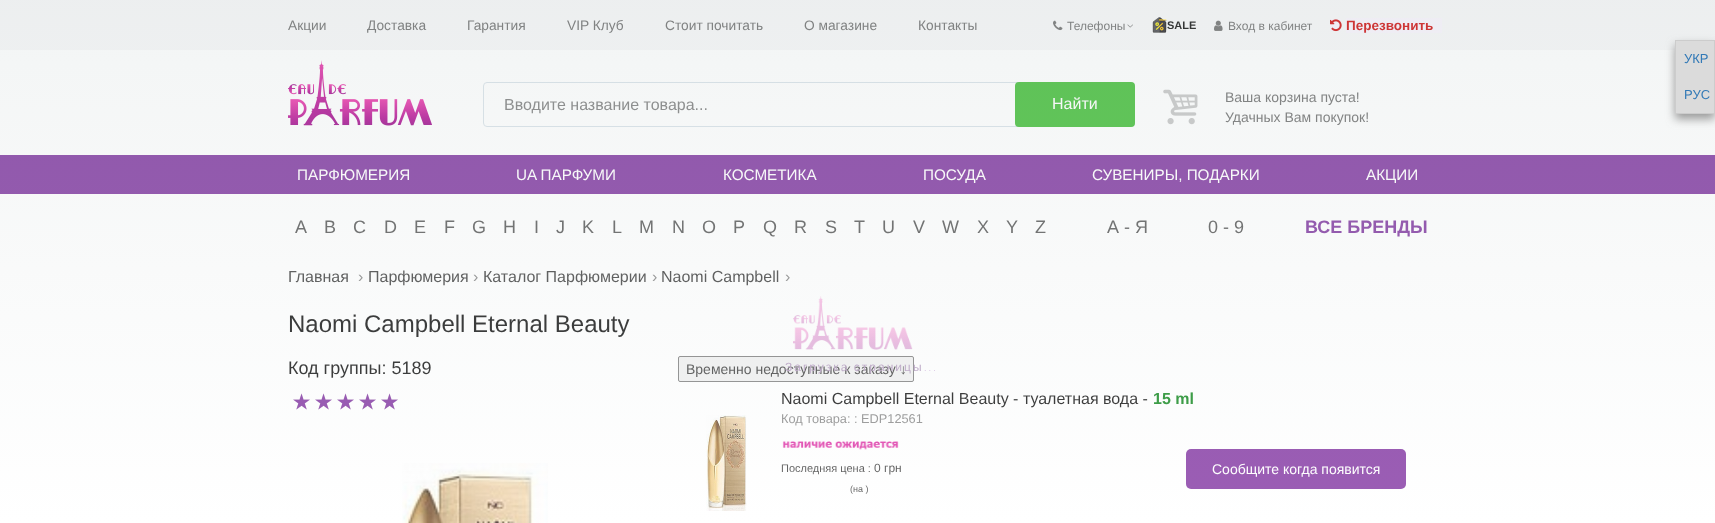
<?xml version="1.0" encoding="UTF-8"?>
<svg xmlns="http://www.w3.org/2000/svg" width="1715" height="523">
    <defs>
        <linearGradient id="g1" gradientUnits="userSpaceOnUse" x1="858" y1="523" x2="858" y2="0"><stop offset="0" stop-color="#FFFFFF" stop-opacity="0.25"/><stop offset="1" stop-color="#CDD6D6" stop-opacity="0.25"/></linearGradient>
        <filter id="blur1" x="-50%" y="-200%" width="200%" height="500%"><feGaussianBlur stdDeviation="5"/></filter>
    </defs>
    <rect width="100%" height="100%" fill="#FFFFFF"/>
    <rect x="0" y="0" width="1715" height="50" fill="#F7F7F8"/>
    <text x="288" y="30" font-family="Liberation Sans" font-size="13.75" fill="#666666">Акции</text>
    <text x="367" y="30" font-family="Liberation Sans" font-size="13.75" fill="#666666">Доставка</text>
    <text x="467" y="30" font-family="Liberation Sans" font-size="13.75" fill="#666666">Гарантия</text>
    <text x="567" y="30" font-family="Liberation Sans" font-size="13.75" fill="#666666">VIP Клуб</text>
    <text x="665" y="30" font-family="Liberation Sans" font-size="13.75" fill="#666666">Стоит почитать</text>
    <text x="804" y="30" font-family="Liberation Sans" font-size="13.75" fill="#666666">О магазине</text>
    <text x="918" y="30" font-family="Liberation Sans" font-size="13.75" fill="#666666">Контакты</text>
    <image x="1127" y="24" width="6" height="4" href="img_01.png"/>
    <image x="1053" y="20" width="10" height="11" href="img_02.png"/>
    <text x="1067" y="30" font-family="Liberation Sans" font-size="12" fill="#666666">Телефоны</text>
    <image x="1152" y="17" width="15" height="16" href="img_03.png"/>
    <text x="1167" y="29" font-family="Liberation Sans" font-size="11" font-weight="700" fill="#000000">SALE</text>
    <image x="1214" y="20" width="9" height="11" href="img_04.png"/>
    <text x="1228" y="30" font-family="Liberation Sans" font-size="12" fill="#666666">Вход в кабинет</text>
    <rect x="1330" y="19" width="11" height="12" fill="#F9F4FD"/>
    <rect x="1346" y="18" width="96" height="15" fill="#F9F4FD"/>
    <image x="1330" y="19" width="12" height="13" href="img_05.png"/>
    <text x="1346" y="30" font-family="Liberation Sans" font-size="13.5" font-weight="700" fill="#CC0000">Перезвонить</text>
    <image x="288" y="60" width="144" height="66" href="img_06.png"/>
    <rect x="483.5" y="82.5" width="651" height="44" rx="3.5" fill="none" stroke="#D6E0E7"/>
    <text x="504" y="110" font-family="Liberation Sans" font-size="16" fill="#757575">Вводите название товара...</text>
    <rect x="1015" y="82" width="120" height="45" rx="4" fill="#38BA2C"/>
    <text x="1052" y="109" font-family="Liberation Sans" font-size="16" fill="#FFFFFF">Найти</text>
    <image x="1163" y="89" width="35" height="36" href="img_07.png"/>
    <text font-family="Liberation Sans" font-size="14" fill="#666666">
        <tspan x="1225" y="102">Ваша корзина пуста!</tspan>
        <tspan x="1225" y="122">Удачных Вам покупок!</tspan>
    </text>
    <rect x="0" y="155" width="1715" height="39" fill="#792C9B"/>
    <text x="297" y="180" font-family="Liberation Sans" font-size="15.25" fill="#FFFFFF">ПАРФЮМЕРИЯ</text>
    <text x="516" y="180" font-family="Liberation Sans" font-size="15.25" fill="#FFFFFF">UA ПАРФУМИ</text>
    <text x="723" y="180" font-family="Liberation Sans" font-size="15.25" fill="#FFFFFF">КОСМЕТИКА</text>
    <text x="923" y="180" font-family="Liberation Sans" font-size="15.25" fill="#FFFFFF">ПОСУДА</text>
    <text x="1092" y="180" font-family="Liberation Sans" font-size="15.25" fill="#FFFFFF">СУВЕНИРЫ, ПОДАРКИ</text>
    <text x="1366" y="180" font-family="Liberation Sans" font-size="15.25" fill="#FFFFFF">АКЦИИ</text>
    <text x="295" y="233" font-family="Liberation Sans" font-size="18" fill="#4D4D4D">A</text>
    <text x="324" y="233" font-family="Liberation Sans" font-size="18" fill="#4D4D4D">B</text>
    <text x="353" y="233" font-family="Liberation Sans" font-size="18" fill="#4D4D4D">C</text>
    <text x="384" y="233" font-family="Liberation Sans" font-size="18" fill="#4D4D4D">D</text>
    <text x="414" y="233" font-family="Liberation Sans" font-size="18" fill="#4D4D4D">E</text>
    <text x="444" y="233" font-family="Liberation Sans" font-size="18" fill="#4D4D4D">F</text>
    <text x="472" y="233" font-family="Liberation Sans" font-size="18" fill="#4D4D4D">G</text>
    <text x="503" y="233" font-family="Liberation Sans" font-size="18" fill="#4D4D4D">H</text>
    <text x="534" y="233" font-family="Liberation Sans" font-size="18" fill="#4D4D4D">I</text>
    <text x="556" y="233" font-family="Liberation Sans" font-size="18" fill="#4D4D4D">J</text>
    <text x="582" y="233" font-family="Liberation Sans" font-size="18" fill="#4D4D4D">K</text>
    <text x="612" y="233" font-family="Liberation Sans" font-size="18" fill="#4D4D4D">L</text>
    <text x="639" y="233" font-family="Liberation Sans" font-size="18" fill="#4D4D4D">M</text>
    <text x="672" y="233" font-family="Liberation Sans" font-size="18" fill="#4D4D4D">N</text>
    <text x="702" y="233" font-family="Liberation Sans" font-size="18" fill="#4D4D4D">O</text>
    <text x="733" y="233" font-family="Liberation Sans" font-size="18" fill="#4D4D4D">P</text>
    <text x="763" y="233" font-family="Liberation Sans" font-size="18" fill="#4D4D4D">Q</text>
    <text x="794" y="233" font-family="Liberation Sans" font-size="18" fill="#4D4D4D">R</text>
    <text x="825" y="233" font-family="Liberation Sans" font-size="18" fill="#4D4D4D">S</text>
    <text x="854" y="233" font-family="Liberation Sans" font-size="18" fill="#4D4D4D">T</text>
    <text x="882" y="233" font-family="Liberation Sans" font-size="18" fill="#4D4D4D">U</text>
    <text x="913" y="233" font-family="Liberation Sans" font-size="18" fill="#4D4D4D">V</text>
    <text x="942" y="233" font-family="Liberation Sans" font-size="18" fill="#4D4D4D">W</text>
    <text x="977" y="233" font-family="Liberation Sans" font-size="18" fill="#4D4D4D">X</text>
    <text x="1006" y="233" font-family="Liberation Sans" font-size="18" fill="#4D4D4D">Y</text>
    <text x="1035" y="233" font-family="Liberation Sans" font-size="18" fill="#4D4D4D">Z</text>
    <text x="1107" y="233" font-family="Liberation Sans" font-size="18" fill="#4D4D4D">А - Я</text>
    <text x="1208" y="233" font-family="Liberation Sans" font-size="18" fill="#4D4D4D">0 - 9</text>
    <text x="1305" y="233" font-family="Liberation Sans" font-size="18" font-weight="700" fill="#792C9B">ВСЕ БРЕНДЫ</text>
    <text x="288" y="282" font-family="Liberation Sans" font-size="16" fill="#333333">Главная</text>
    <text x="358" y="282" font-family="Liberation Sans" font-size="16" fill="#808080">›</text>
    <text x="368" y="282" font-family="Liberation Sans" font-size="16" fill="#333333">Парфюмерия</text>
    <text x="473" y="282" font-family="Liberation Sans" font-size="16" fill="#808080">›</text>
    <text x="483" y="282" font-family="Liberation Sans" font-size="16" fill="#333333">Каталог Парфюмерии</text>
    <text x="652" y="282" font-family="Liberation Sans" font-size="16" fill="#808080">›</text>
    <text x="661" y="282" font-family="Liberation Sans" font-size="16" fill="#333333">Naomi Campbell</text>
    <text x="785" y="282" font-family="Liberation Sans" font-size="16" fill="#808080">›</text>
    <text x="288" y="332" font-family="Liberation Sans" font-size="24" fill="#000000">Naomi Campbell Eternal Beauty</text>
    <text x="288" y="374" font-family="Liberation Sans" font-size="18" fill="#000000">Код группы: 5189</text>
    <image x="293" y="394" width="17" height="16" href="img_09.png"/>
    <image x="293" y="393" width="17" height="17" href="img_08.png"/>
    <image x="315" y="394" width="17" height="16" href="img_09.png"/>
    <image x="315" y="393" width="17" height="17" href="img_08.png"/>
    <image x="337" y="394" width="17" height="16" href="img_09.png"/>
    <image x="337" y="393" width="17" height="17" href="img_08.png"/>
    <image x="359" y="394" width="17" height="16" href="img_09.png"/>
    <image x="359" y="393" width="17" height="17" href="img_08.png"/>
    <image x="381" y="394" width="17" height="16" href="img_09.png"/>
    <image x="381" y="393" width="17" height="17" href="img_08.png"/>
    <image x="402" y="463" width="146" height="60" href="img_10.png"/>
    <rect x="678.5" y="356.5" width="235" height="25" rx="1.5" fill="#EFEFEF" stroke="#767676"/>
    <text x="686" y="374" font-family="Liberation Sans" font-size="14" fill="#333333">Временно недоступные к заказу ↓</text>
    <image x="706" y="415" width="41" height="96" href="img_11.png"/>
    <text x="781" y="404" font-family="Liberation Sans" font-size="16" fill="#000000">Naomi Campbell Eternal Beauty - туалетная вода -</text>
    <text x="1153" y="404" font-family="Liberation Sans" font-size="16" font-weight="700" fill="#007F0E">15 ml</text>
    <text x="781" y="423" font-family="Liberation Sans" font-size="12.75" fill="#808080">Код товара: : EDP12561</text>
    <image x="782" y="441" width="117" height="9" href="img_12.png"/>
    <text x="781" y="472" font-family="Liberation Sans" font-size="11" fill="#333333">Последняя цена :</text>
    <text x="874" y="472" font-family="Liberation Sans" font-size="12" fill="#333333">0 грн</text>
    <text x="850" y="492" font-family="Liberation Sans" font-size="9" fill="#333333">(на )</text>
    <rect x="1186" y="449" width="220" height="40" rx="5" fill="#7A289C"/>
    <text x="1212" y="474" font-family="Liberation Sans" font-size="14" fill="#FFFFFF">Сообщите когда появится</text>
    <rect x="0" y="0" width="1715" height="523" fill="url(#g1)"/>
    <rect x="1675" y="45" width="40" height="74" fill="#999999" filter="url(#blur1)"/>
    <rect x="1675.5" y="40.5" width="39" height="73" fill="#DBDBDB" stroke="#CCCCCC"/>
    <text x="1684" y="63" font-family="Liberation Sans" font-size="13" fill="#337AB7">УКР</text>
    <text x="1684" y="99" font-family="Liberation Sans" font-size="13" fill="#337AB7">РУС</text>
    <image x="793" y="296" width="120" height="54" href="img_13.png"/>
    <text x="785" y="371" word-spacing="-1" font-family="Liberation Sans" font-size="12" letter-spacing="2" fill="#C0AECA">Загрузка страницы</text>
    <text x="924" y="371" font-family="Abel" font-size="12" letter-spacing="2" fill="#DDCAE6">...</text>
</svg>
